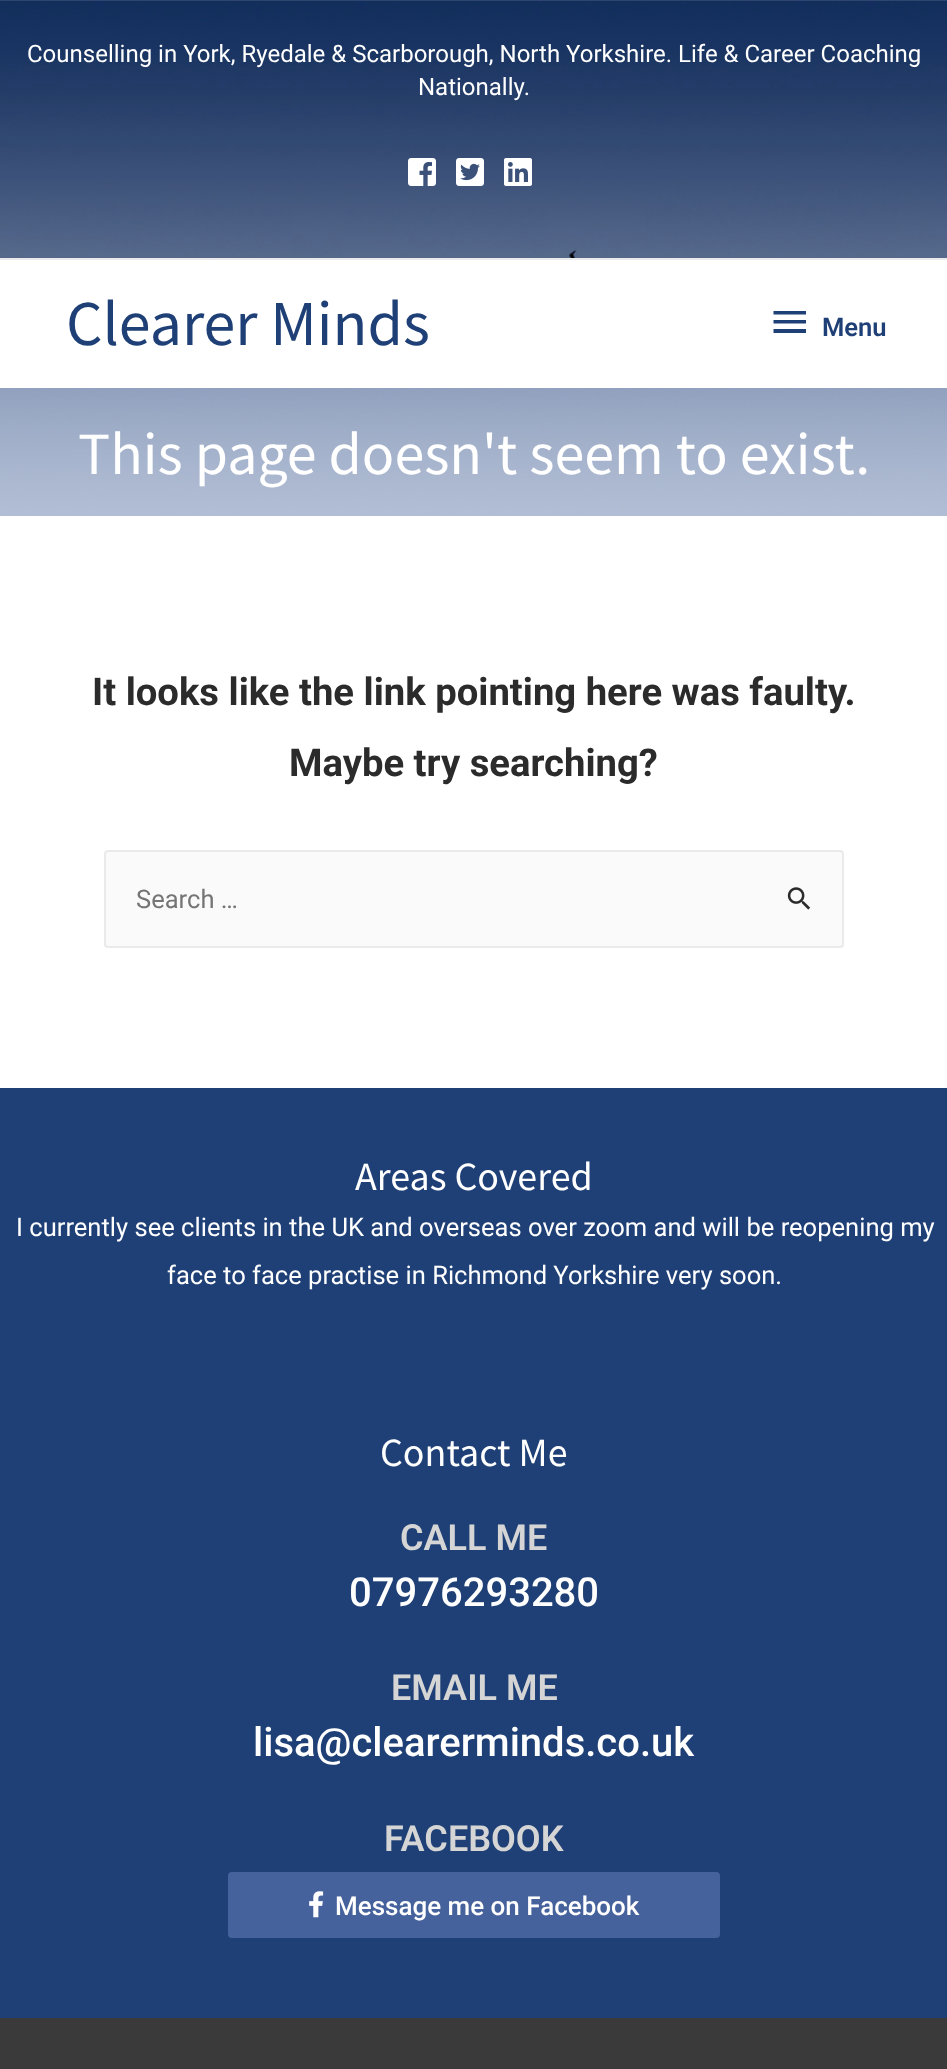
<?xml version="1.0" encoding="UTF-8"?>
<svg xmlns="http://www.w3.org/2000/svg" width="947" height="2069">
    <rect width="100%" height="100%" fill="#FFFFFF"/>
    <image x="0" y="0" width="947" height="516" href="img_01.png"/>
    <rect x="0" y="0" width="947" height="258" fill="#000000" fill-opacity="0.11"/>
    <rect x="0" y="258" width="947" height="2" fill="#EAEAEA"/>
    <text x="27" y="62" font-family="Roboto" font-size="24" fill="#FFFFFF">Counselling in York, Ryedale &amp; Scarborough, North Yorkshire. Life &amp; Career Coaching</text>
    <text x="418" y="95" font-family="Roboto" font-size="24" fill="#FFFFFF">Nationally.</text>
    <image x="408" y="158" width="28" height="28" href="img_02.png"/>
    <image x="456" y="158" width="28" height="28" href="img_03.png"/>
    <image x="504" y="158" width="28" height="28" href="img_04.png"/>
    <rect x="0" y="260" width="947" height="128" fill="#FFFFFF"/>
    <text x="66" y="345" font-family="Source Sans Pro" font-size="64" fill="#1F4076">Clearer Minds</text>
    <path d="M 773.5 311 H 806 V 314.5 H 773.5 Z M 773.5 323.5 V 320 H 806 V 323.5 Z M 773.5 333 V 329 H 806 V 333 Z" fill="#1F4076"/>
    <text x="822" y="336" font-family="Roboto" font-size="25.55" font-weight="600" fill="#1F4076">Menu</text>
    <text x="78" y="474" font-family="Source Sans Pro" font-size="60" fill="#FFFFFF">This page doesn't seem to exist.</text>
    <text x="92" y="705" font-family="Roboto" font-size="38.25" font-weight="700" fill="#2B2B2B">It looks like the link pointing here was faulty.</text>
    <text x="289" y="776" font-family="Roboto" font-size="38.25" font-weight="700" fill="#2B2B2B">Maybe try searching?</text>
    <rect x="105" y="851" width="738" height="96" rx="3" fill="#FAFAFA" stroke="#EAEAEA" stroke-width="2"/>
    <text x="136" y="908" font-family="Roboto" font-size="25.55" fill="#757575">Search …</text>
    <image x="787" y="887" width="24" height="23" href="img_05.png"/>
    <rect x="0" y="1088" width="947" height="930" fill="#1F4076"/>
    <text x="355" y="1190" font-family="Source Sans Pro" font-size="40" fill="#FFFFFF">Areas Covered</text>
    <text x="16" y="1236" font-family="Roboto" font-size="25.55" fill="#FFFFFF">I currently see clients in the UK and overseas over zoom and will be reopening my</text>
    <text x="167" y="1284" font-family="Roboto" font-size="25.55" fill="#FFFFFF">face to face practise in Richmond Yorkshire very soon.</text>
    <text x="380" y="1466" font-family="Source Sans Pro" font-size="40" fill="#FFFFFF">Contact Me</text>
    <text x="400" y="1550" font-family="Roboto" font-size="36" font-weight="600" fill="#D5D5D5">CALL ME</text>
    <text x="349" y="1606" font-family="Roboto" font-size="40" font-weight="500" fill="#FFFFFF">07976293280</text>
    <text x="391" y="1700" font-family="Roboto" font-size="36" font-weight="600" fill="#D5D5D5">EMAIL ME</text>
    <text x="253" y="1756" font-family="Roboto" font-size="40" font-weight="500" fill="#FFFFFF">lisa@clearerminds.co.uk</text>
    <text x="384" y="1851" font-family="Roboto" font-size="36" font-weight="600" fill="#D5D5D5">FACEBOOK</text>
    <rect x="228" y="1872" width="492" height="66" rx="4" fill="#46629C"/>
    <image x="309" y="1891" width="15" height="27" href="img_06.png"/>
    <text x="335" y="1915" font-family="Roboto" font-size="26" font-weight="500" fill="#FFFFFF">Message me on Facebook</text>
    <rect x="0" y="2018" width="947" height="51" fill="#3A3A3A"/>
</svg>
